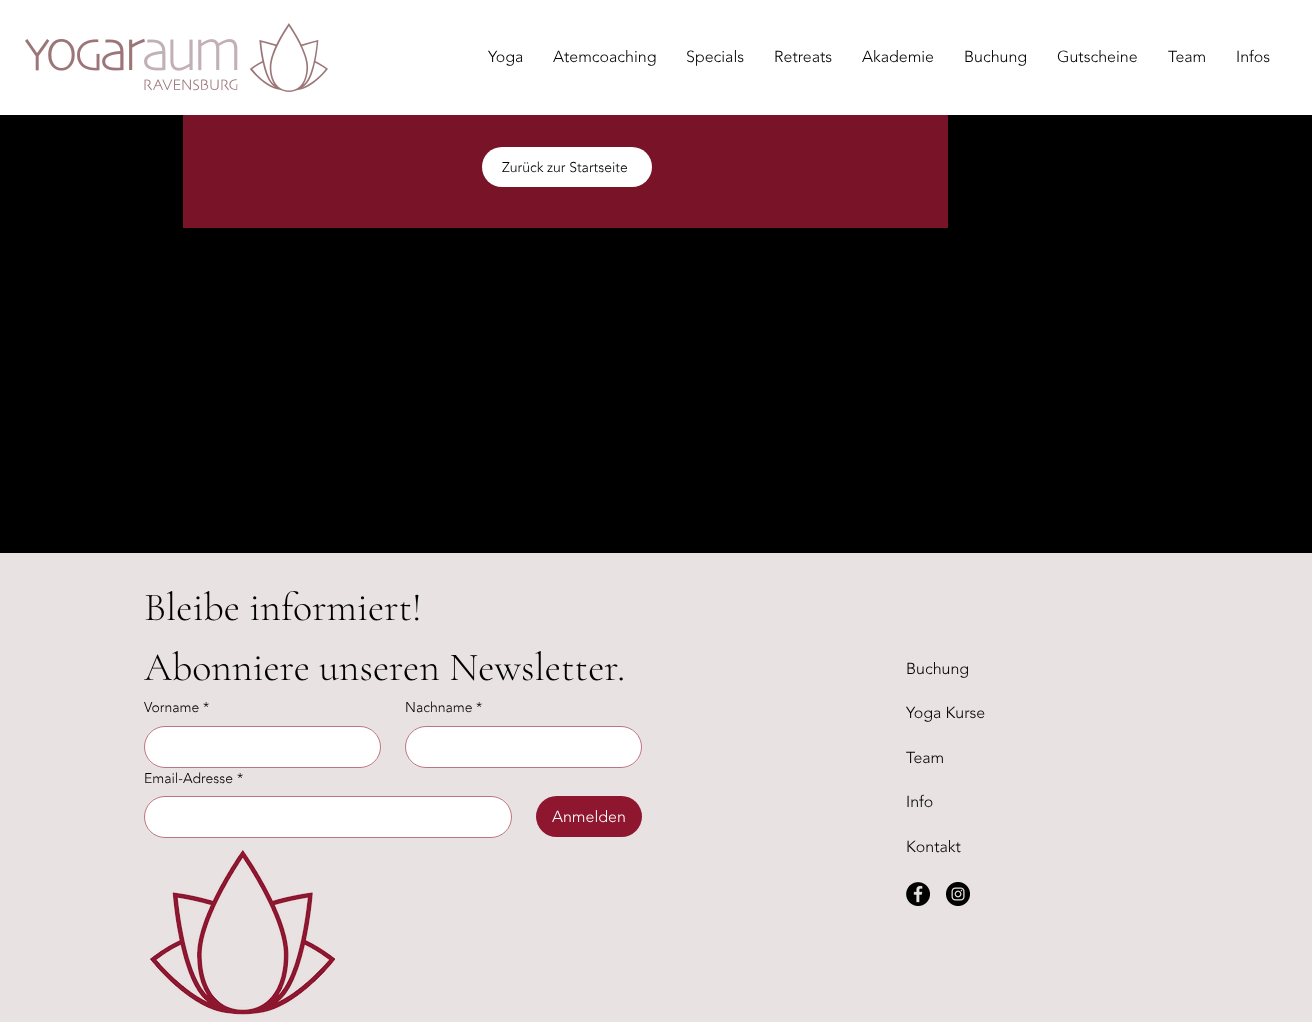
<?xml version="1.0" encoding="UTF-8"?>
<svg xmlns="http://www.w3.org/2000/svg" width="1312" height="1022">
    <rect width="100%" height="100%" fill="#000000"/>
    <rect x="0" y="0" width="1312" height="115" fill="#FFFFFF"/>
    <image x="25" y="23" width="303" height="69" href="img_01.png"/>
    <text x="488" y="62" font-family="'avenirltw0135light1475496'" font-size="16" font-weight="300" fill="#000000">Yoga</text>
    <text x="553" y="62" font-family="'avenirltw0135light1475496'" font-size="16" font-weight="300" fill="#000000">Atemcoaching</text>
    <text x="686" y="62" font-family="'avenirltw0135light1475496'" font-size="16" font-weight="300" fill="#000000">Specials</text>
    <text x="774" y="62" font-family="'avenirltw0135light1475496'" font-size="16" font-weight="300" fill="#000000">Retreats</text>
    <text x="862" y="62" font-family="'avenirltw0135light1475496'" font-size="16" font-weight="300" fill="#000000">Akademie</text>
    <text x="964" y="62" font-family="'avenirltw0135light1475496'" font-size="16" font-weight="300" fill="#000000">Buchung</text>
    <text x="1057" y="62" font-family="'avenirltw0135light1475496'" font-size="16" font-weight="300" fill="#000000">Gutscheine</text>
    <text x="1168" y="62" font-family="'avenirltw0135light1475496'" font-size="16" font-weight="300" fill="#000000">Team</text>
    <text x="1236" y="62" font-family="'avenirltw0135light1475496'" font-size="16" font-weight="300" fill="#000000">Infos</text>
    <rect x="183" y="115" width="765" height="113" fill="#791428"/>
    <rect x="482" y="147" width="170" height="40" rx="20" fill="#FFFFFF"/>
    <text x="502" y="172" font-family="'avenirltw0135light1475496'" font-size="14" font-weight="300" fill="#000000">Zurück zur Startseite</text>
    <rect x="0" y="553" width="1312" height="469" fill="#E9E2E2"/>
    <text font-family="Cormorant Garamond" font-size="40" font-weight="300" fill="#000000">
        <tspan x="144" y="620">Bleibe informiert!</tspan>
        <tspan x="144" y="680">Abonniere unseren Newsletter.</tspan>
    </text>
    <text x="144" y="712" font-family="'avenirltw0135light1475496'" font-size="14" font-weight="300" fill="#000000">Vorname</text>
    <text x="203" y="712" font-family="'avenirltw0135light1475496'" font-size="14" font-weight="300" fill="#000000">*</text>
    <text x="405" y="712" font-family="'avenirltw0135light1475496'" font-size="14" font-weight="300" fill="#000000">Nachname</text>
    <text x="476" y="712" font-family="'avenirltw0135light1475496'" font-size="14" font-weight="300" fill="#000000">*</text>
    <rect x="144" y="726" width="237" height="42" rx="21" fill="#FFFFFF"/>
    <rect x="144.5" y="726.5" width="236" height="41" rx="20.5" fill="none" stroke="#8E172F" stroke-opacity="0.6"/>
    <rect x="405" y="726" width="237" height="42" rx="21" fill="#FFFFFF"/>
    <rect x="405.5" y="726.5" width="236" height="41" rx="20.5" fill="none" stroke="#8E172F" stroke-opacity="0.6"/>
    <text x="144" y="783" font-family="'avenirltw0135light1475496'" font-size="14" font-weight="300" fill="#000000">Email-Adresse</text>
    <text x="237" y="783" font-family="'avenirltw0135light1475496'" font-size="14" font-weight="300" fill="#000000">*</text>
    <rect x="144" y="796" width="368" height="42" rx="21" fill="#FFFFFF"/>
    <rect x="144.5" y="796.5" width="367" height="41" rx="20.5" fill="none" stroke="#8E172F" stroke-opacity="0.6"/>
    <rect x="536" y="796" width="106" height="41" rx="20.5" fill="#8E172F"/>
    <text x="552" y="822" font-family="'avenirltw0135light1475496'" font-size="16" font-weight="300" fill="#FFFFFF">Anmelden</text>
    <image x="150" y="850" width="185" height="165" href="img_02.png"/>
    <text x="906" y="674" font-family="'avenirltw0135light1475496'" font-size="16" font-weight="300" fill="#000000">Buchung</text>
    <text x="906" y="718" font-family="'avenirltw0135light1475496'" font-size="16" font-weight="300" fill="#000000">Yoga Kurse</text>
    <text x="906" y="763" font-family="'avenirltw0135light1475496'" font-size="16" font-weight="300" fill="#000000">Team</text>
    <text x="906" y="807" font-family="'avenirltw0135light1475496'" font-size="16" font-weight="300" fill="#000000">Info</text>
    <text x="906" y="852" font-family="'avenirltw0135light1475496'" font-size="16" font-weight="300" fill="#000000">Kontakt</text>
    <image x="906" y="882" width="24" height="24" href="img_03.png"/>
    <image x="946" y="882" width="24" height="24" href="img_04.png"/>
</svg>
